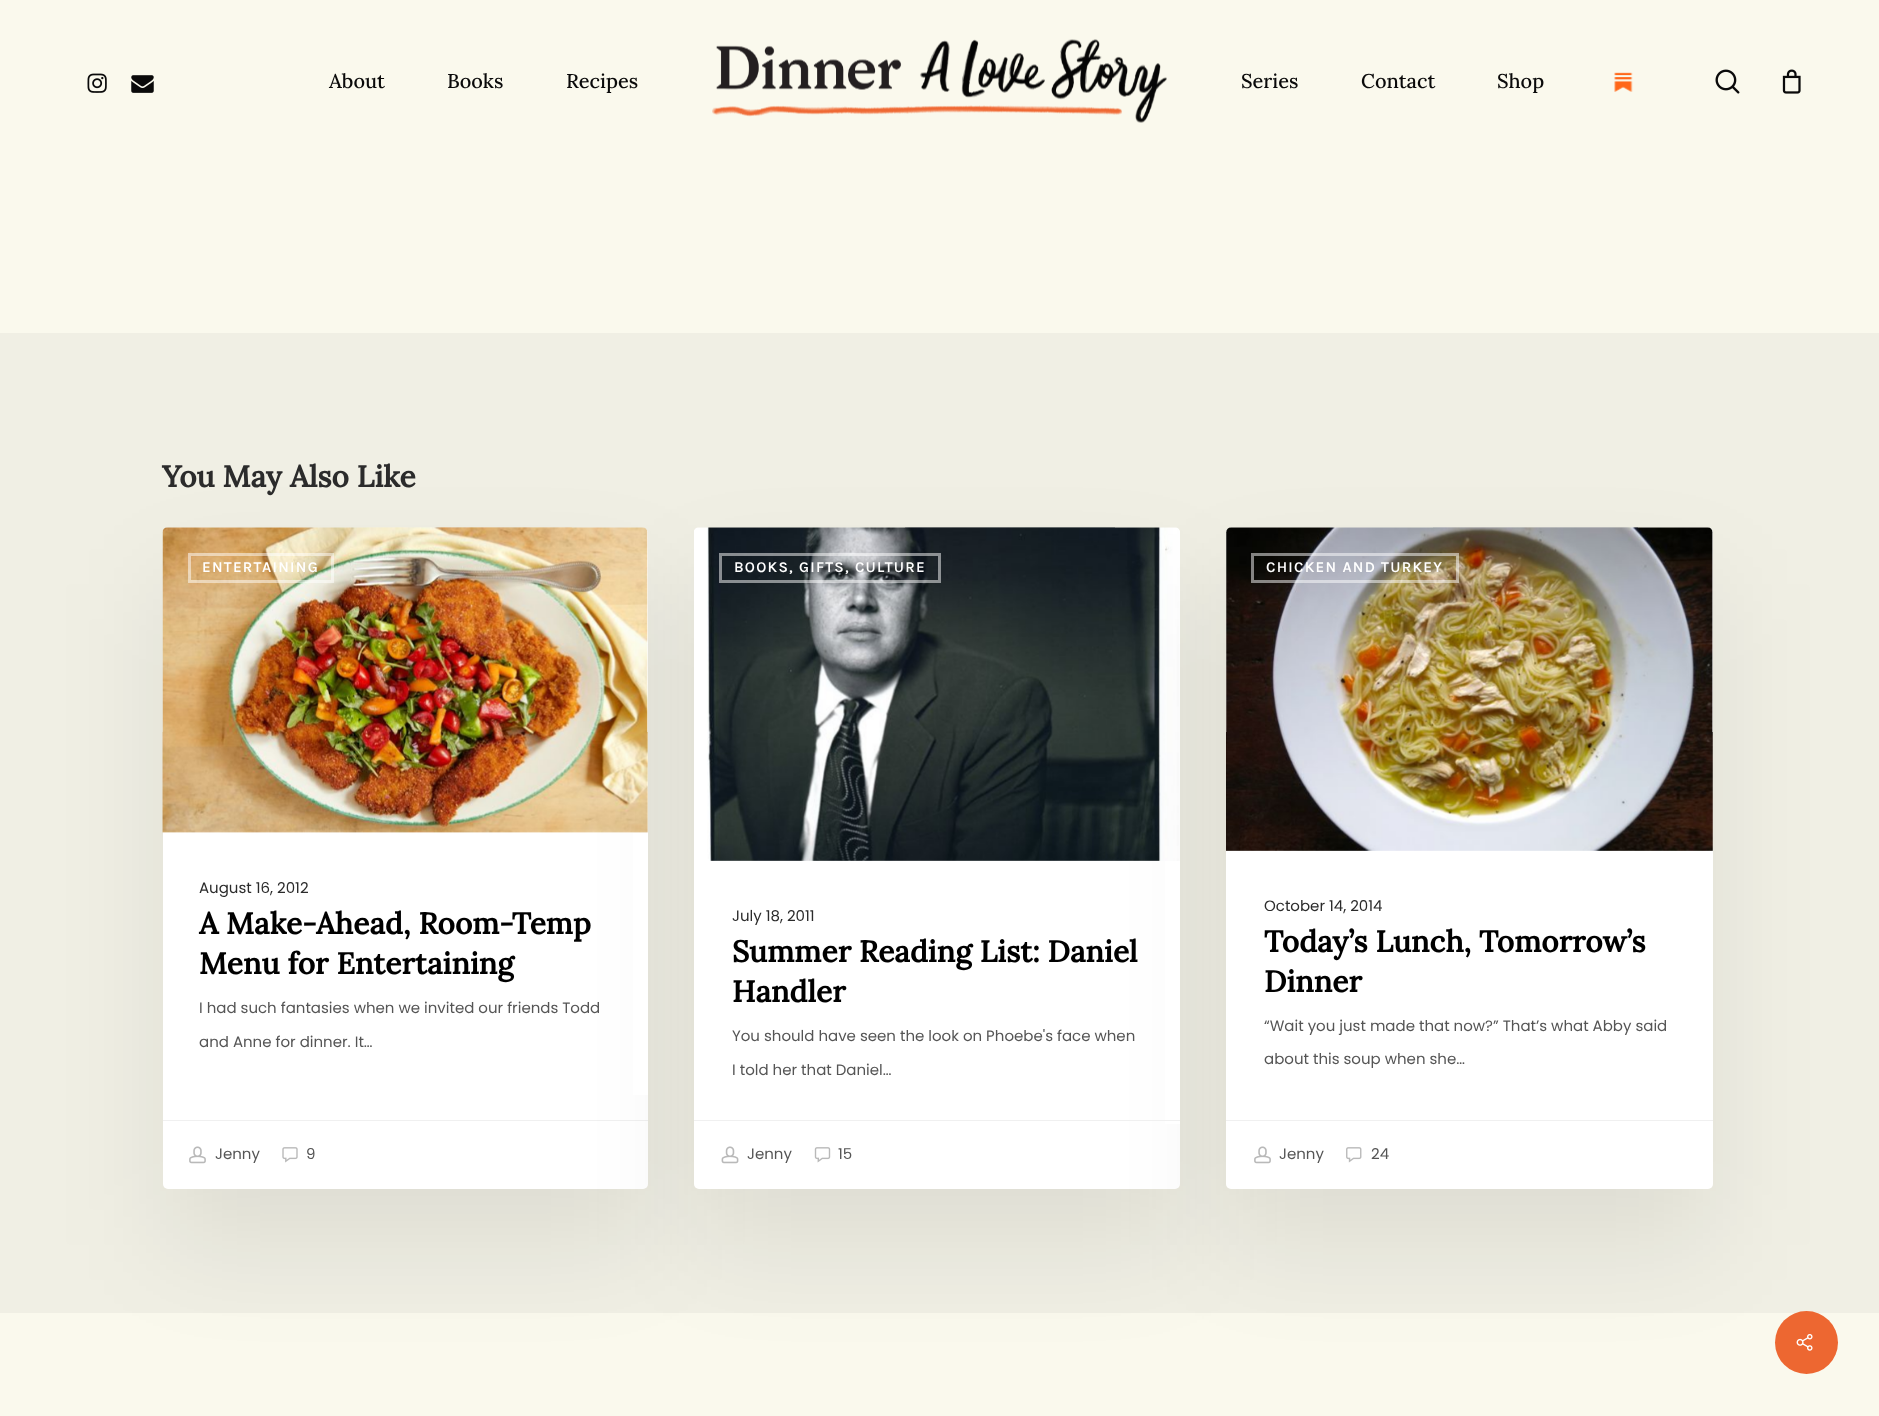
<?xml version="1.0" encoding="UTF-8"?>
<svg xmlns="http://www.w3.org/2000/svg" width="1879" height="1416">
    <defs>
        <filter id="blur1" x="-50%" y="-200%" width="200%" height="500%"><feGaussianBlur stdDeviation="53"/></filter>
    </defs>
    <rect width="100%" height="100%" fill="#FAF9ED"/>
    <rect x="0" y="333" width="1879" height="980" fill="#F0EFE4"/>
    <image x="712" y="39" width="455" height="84" href="img_01.png"/>
    <image x="87" y="73" width="20" height="20" href="img_02.png"/>
    <image x="131" y="75" width="23" height="18" href="img_03.png"/>
    <text x="329" y="88" font-family="Lora" font-size="20" font-weight="500" fill="#0A0A0A">About</text>
    <text x="447" y="88" font-family="Lora" font-size="20" font-weight="500" fill="#0A0A0A">Books</text>
    <text x="566" y="88" font-family="Lora" font-size="20" font-weight="500" fill="#0A0A0A">Recipes</text>
    <text x="1241" y="88" font-family="Lora" font-size="20" font-weight="500" fill="#0A0A0A">Series</text>
    <text x="1361" y="88" font-family="Lora" font-size="20" font-weight="500" fill="#0A0A0A">Contact</text>
    <text x="1497" y="88" font-family="Lora" font-size="20" font-weight="500" fill="#0A0A0A">Shop</text>
    <image x="1614" y="72" width="19" height="20" href="img_04.png"/>
    <image x="1715" y="69" width="25" height="25" href="img_05.png"/>
    <image x="1782" y="69" width="19" height="25" href="img_06.png"/>
    <text x="162" y="487" font-family="Lora" font-size="30" font-weight="700" fill="#2B2B2B">You May Also Like</text>
    <rect x="163" y="584" width="485" height="661" rx="5" fill="#000000" fill-opacity="0.08" filter="url(#blur1)"/>
    <rect x="163" y="528" width="485" height="661" rx="5" fill="#FFFFFF"/>
    <image x="162" y="527" width="486" height="306" href="img_07.png"/>
    <rect x="189.5" y="554.5" width="143" height="27" fill="none" stroke="#FFFFFF" stroke-opacity="0.5" stroke-width="3"/>
    <text x="202" y="572" font-family="Karla" font-size="15" font-weight="600" letter-spacing="1.25" fill="#FFFFFF">ENTERTAINING</text>
    <rect x="694" y="584" width="486" height="661" rx="5" fill="#000000" fill-opacity="0.08" filter="url(#blur1)"/>
    <rect x="633" y="833" width="15" height="262" fill="#FFFFFF"/>
    <text x="199" y="893" font-family="Poppins" font-size="15" fill="#2B2B2B">August 16, 2012</text>
    <text font-family="Lora" font-size="30" font-weight="700" fill="#000000">
        <tspan x="199" y="934">A Make-Ahead, Room-Temp</tspan>
        <tspan x="199" y="974">Menu for Entertaining</tspan>
    </text>
    <text x="199" y="1013" font-family="Poppins" font-size="15" fill="#555555">I had such fantasies when we invited our friends Todd</text>
    <text x="199" y="1047" font-family="Poppins" font-size="15" fill="#555555">and Anne for dinner. It…</text>
    <rect x="163" y="1120" width="485" height="1" fill="#000000" fill-opacity="0.06"/>
    <image x="189" y="1146" width="17" height="18" href="img_08.png"/>
    <text x="215" y="1159" font-family="Poppins" font-size="15" fill="#555555">Jenny</text>
    <image x="282" y="1147" width="16" height="16" href="img_09.png"/>
    <text x="306" y="1159" font-family="Poppins" font-size="15" fill="#555555">9</text>
    <rect x="694" y="528" width="486" height="661" rx="5" fill="#FFFFFF"/>
    <image x="694" y="527" width="486" height="334" href="img_10.png"/>
    <rect x="720.5" y="554.5" width="219" height="27" fill="none" stroke="#FFFFFF" stroke-opacity="0.5" stroke-width="3"/>
    <text x="734" y="572" font-family="Karla" font-size="15" font-weight="600" letter-spacing="1.25" fill="#FFFFFF">BOOKS, GIFTS, CULTURE</text>
    <rect x="1226" y="584" width="487" height="661" rx="5" fill="#000000" fill-opacity="0.08" filter="url(#blur1)"/>
    <rect x="1165" y="861" width="15" height="263" fill="#FFFFFF"/>
    <text x="732" y="921" font-family="Poppins" font-size="15" fill="#2B2B2B">July 18, 2011</text>
    <text font-family="Lora" font-size="30" font-weight="700" fill="#000000">
        <tspan x="732" y="962">Summer Reading List: Daniel</tspan>
        <tspan x="732" y="1002">Handler</tspan>
    </text>
    <text x="732" y="1041" font-family="Poppins" font-size="15" fill="#555555">You should have seen the look on Phoebe's face when</text>
    <text x="732" y="1075" font-family="Poppins" font-size="15" fill="#555555">I told her that Daniel…</text>
    <rect x="694" y="1120" width="486" height="1" fill="#F0F0F0"/>
    <image x="721" y="1146" width="18" height="18" href="img_11.png"/>
    <text x="747" y="1159" font-family="Poppins" font-size="15" fill="#555555">Jenny</text>
    <image x="814" y="1147" width="17" height="16" href="img_12.png"/>
    <text x="838" y="1159" font-family="Poppins" font-size="15" fill="#555555">15</text>
    <rect x="1226" y="528" width="487" height="661" rx="5" fill="#FFFFFF"/>
    <image x="1226" y="527" width="487" height="324" href="img_13.png"/>
    <rect x="1252.5" y="554.5" width="205" height="27" fill="none" stroke="#FFFFFF" stroke-opacity="0.5" stroke-width="3"/>
    <text x="1266" y="572" font-family="Karla" font-size="15" font-weight="600" letter-spacing="1.25" fill="#FFFFFF">CHICKEN AND TURKEY</text>
    <text x="1264" y="911" font-family="Poppins" font-size="15" fill="#2B2B2B">October 14, 2014</text>
    <text font-family="Lora" font-size="30" font-weight="700" fill="#000000">
        <tspan x="1264" y="952">Today’s Lunch, Tomorrow’s</tspan>
        <tspan x="1264" y="992">Dinner</tspan>
    </text>
    <text x="1264" y="1031" font-family="Poppins" font-size="15" fill="#555555">“Wait you just made that now?” That’s what Abby said</text>
    <text x="1264" y="1064" font-family="Poppins" font-size="15" fill="#555555">about this soup when she…</text>
    <rect x="1226" y="1120" width="487" height="1" fill="#F0F0F0"/>
    <image x="1254" y="1146" width="17" height="18" href="img_08.png"/>
    <text x="1279" y="1159" font-family="Poppins" font-size="15" fill="#555555">Jenny</text>
    <image x="1346" y="1147" width="16" height="16" href="img_14.png"/>
    <text x="1371" y="1159" font-family="Poppins" font-size="15" fill="#555555">24</text>
    <circle cx="1806.5" cy="1342.5" r="31.5" fill="#ED6731"/>
    <image x="1796" y="1334" width="17" height="17" href="img_15.png"/>
</svg>
